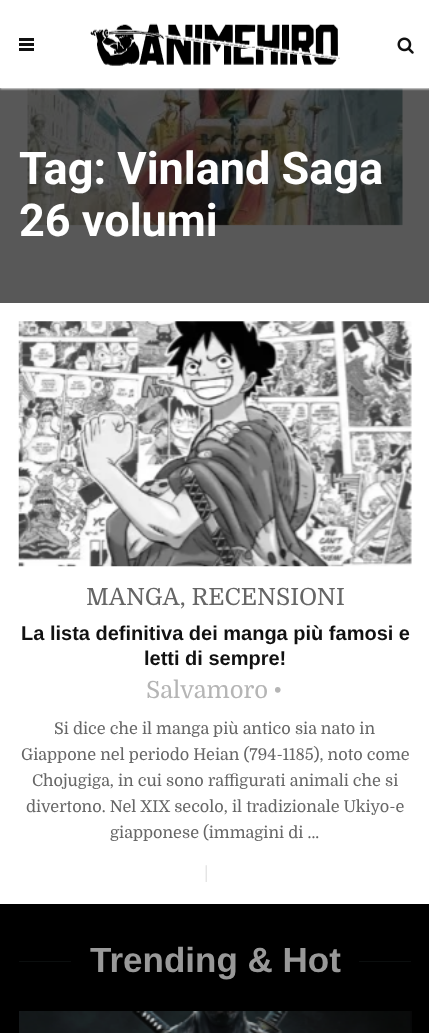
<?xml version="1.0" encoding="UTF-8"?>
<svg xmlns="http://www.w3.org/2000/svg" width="429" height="1033">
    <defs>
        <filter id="blur1" x="-50%" y="-200%" width="200%" height="500%"><feGaussianBlur stdDeviation="1"/></filter>
    </defs>
    <rect width="100%" height="100%" fill="#FFFFFF"/>
    <image x="27" y="88" width="376" height="138" href="img_03.png"/>
    <rect x="0" y="88" width="429" height="215" fill="#111111" fill-opacity="0.7"/>
    <rect x="0" y="1" width="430" height="88" fill="#EAEAEA" filter="url(#blur1)"/>
    <rect x="0" y="0" width="429" height="88" fill="#FFFFFF"/>
    <rect x="19" y="38" width="15" height="3" fill="#111111"/>
    <rect x="19" y="43" width="15" height="3" fill="#111111"/>
    <rect x="19" y="48" width="15" height="3" fill="#111111"/>
    <image x="90" y="23" width="250" height="43" href="img_01.png"/>
    <image x="397" y="37" width="17" height="17" href="img_02.png"/>
    <text font-family="Roboto" font-size="45" font-weight="700" fill="#FFFFFF">
        <tspan x="19" y="184">Tag: Vinland Saga</tspan>
        <tspan x="19" y="236">26 volumi</tspan>
    </text>
    <image x="18" y="321" width="394" height="246" href="img_04.png"/>
    <text x="86" y="605" font-family="Domine" font-size="23.75" fill="#666666">MANGA, RECENSIONI</text>
    <text x="21" y="640" font-family="Liberation Sans" font-size="20" font-weight="700" fill="#111111">La lista definitiva dei manga più famosi e</text>
    <text x="144" y="665" font-family="Liberation Sans" font-size="20" font-weight="700" fill="#111111">letti di sempre!</text>
    <text x="146" y="698" font-family="Domine" font-size="23.75" fill="#B5B5B5">Salvamoro</text>
    <text x="273" y="698" font-family="Domine" font-size="23.75" fill="#B5B5B5">•</text>
    <text x="54" y="734" font-family="Domine" font-size="16.25" fill="#666666">Si dice che il manga più antico sia nato in</text>
    <text x="21" y="760" font-family="Domine" font-size="16.25" fill="#666666">Giappone nel periodo Heian (794-1185), noto come</text>
    <text x="32" y="786" font-family="Domine" font-size="16.25" fill="#666666">Chojugiga, in cui sono raffigurati animali che si</text>
    <text x="26" y="812" font-family="Domine" font-size="16.25" fill="#666666">divertono. Nel XIX secolo, il tradizionale Ukiyo-e</text>
    <text x="110" y="838" font-family="Domine" font-size="16.25" fill="#666666">giapponese (immagini di ...</text>
    <text x="204" y="879" font-family="Domine" font-size="18" fill="#DDDDDD">|</text>
    <rect x="0" y="904" width="429" height="129" fill="#000000"/>
    <rect x="19" y="961" width="52" height="1" fill="#0B0E0E"/>
    <text x="90" y="972" font-family="Liberation Sans" font-size="35" font-weight="700" fill="#999999">Trending &amp; Hot</text>
    <rect x="359" y="961" width="52" height="1" fill="#0B0E0E"/>
    <image x="19" y="1011" width="393" height="22" href="img_05.png"/>
</svg>
